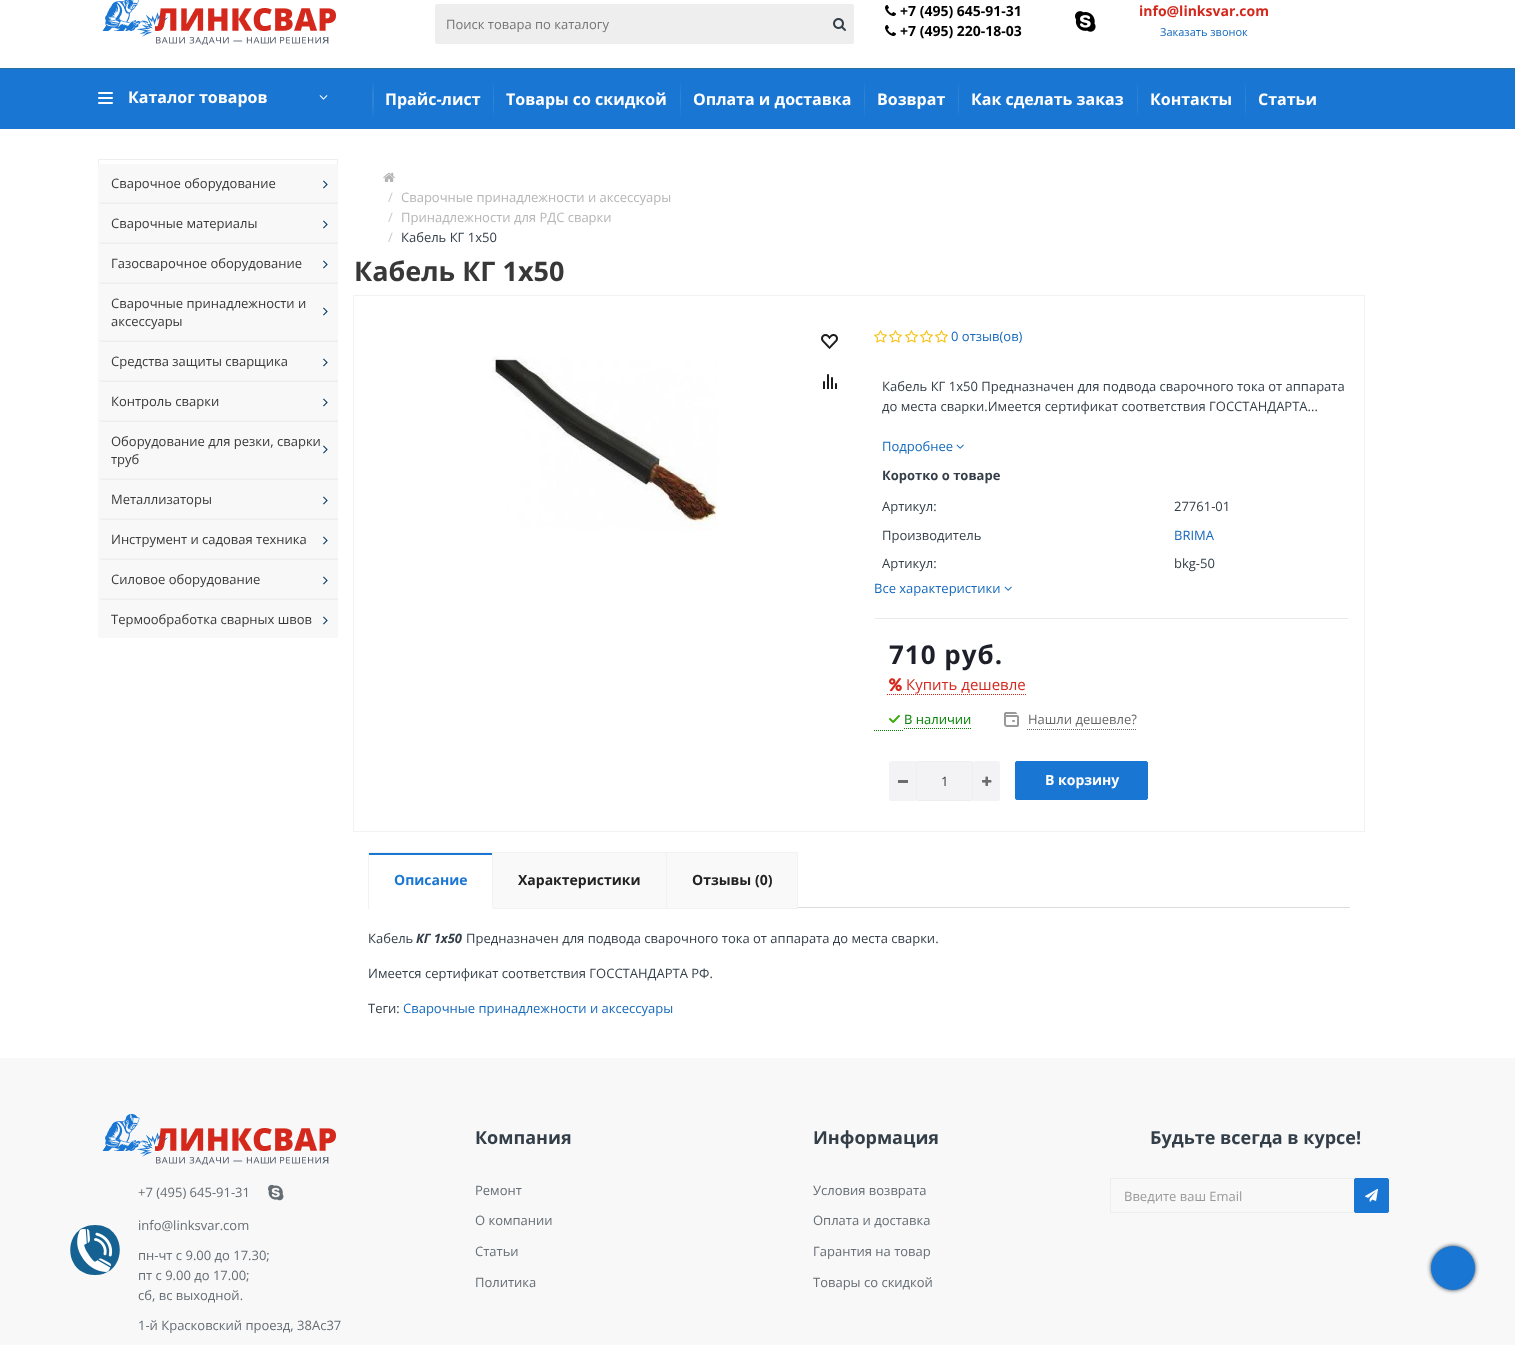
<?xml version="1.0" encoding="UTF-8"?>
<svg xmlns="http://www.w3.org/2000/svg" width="1515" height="1345">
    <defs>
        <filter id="blur1" x="-50%" y="-200%" width="200%" height="500%"><feGaussianBlur stdDeviation="2"/></filter>
    </defs>
    <rect width="100%" height="100%" fill="#FFFFFF"/>
    <rect x="0" y="68" width="1515" height="1" fill="#2D719D"/>
    <image x="102" y="0" width="234" height="45" href="img_01.png"/>
    <rect x="435" y="4" width="391" height="40" rx="2" fill="#EEEEEE"/>
    <text x="446" y="29" font-family="Open Sans" font-size="13" fill="#757575">Поиск товара по каталогу</text>
    <path d="M 825 4 H 852 C 853 4 854 5 854 6 V 42 C 854 43 853 44 852 44 H 825 Z" fill="#EEEEEE"/>
    <image x="833" y="18" width="13" height="13" href="img_02.png"/>
    <image x="885" y="5" width="11" height="11" href="img_03.png"/>
    <text x="900" y="16" font-family="Open Sans" font-size="14" font-weight="700" fill="#000000">+7 (495) 645-91-31</text>
    <text x="1139" y="16" font-family="Open Sans" font-size="14" font-weight="700" fill="#D4281D">info@linksvar.com</text>
    <image x="885" y="25" width="11" height="11" href="img_03.png"/>
    <text x="900" y="36" font-family="Open Sans" font-size="14" font-weight="700" fill="#000000">+7 (495) 220-18-03</text>
    <image x="1075" y="11" width="21" height="21" href="img_04.png"/>
    <text x="1160" y="36" font-family="Open Sans" font-size="11" fill="#1569BC">Заказать звонок</text>
    <rect x="0" y="69" width="1515" height="60" fill="#1976D2"/>
    <image x="98" y="92" width="15" height="12" href="img_05.png"/>
    <text x="128" y="103" font-family="Open Sans" font-size="16" font-weight="700" fill="#FFFFFF">Каталог товаров</text>
    <image x="319" y="95" width="9" height="5" href="img_06.png"/>
    <rect x="98.5" y="159.5" width="239" height="321" fill="none" stroke="#EEEEEE"/>
    <rect x="98" y="164" width="240" height="474" rx="2" fill="#F8F8F9"/>
    <path d="M 338 203 H 98 L 101 202 H 338 Z" fill="#F2F2F2"/>
    <text x="111" y="188" font-family="Open Sans" font-size="13" fill="#383838">Сварочное оборудование</text>
    <image x="323" y="180" width="5" height="9" href="img_07.png"/>
    <path d="M 338 243 H 98 L 101 242 H 338 Z" fill="#F2F2F2"/>
    <rect x="101" y="203" width="237" height="1" fill="#EEEEEE"/>
    <text x="111" y="228" font-family="Open Sans" font-size="13" fill="#383838">Сварочные материалы</text>
    <image x="323" y="220" width="5" height="9" href="img_07.png"/>
    <path d="M 338 283 H 98 L 101 282 H 338 Z" fill="#F2F2F2"/>
    <rect x="101" y="243" width="237" height="1" fill="#EEEEEE"/>
    <text x="111" y="268" font-family="Open Sans" font-size="13" fill="#383838">Газосварочное оборудование</text>
    <image x="323" y="260" width="5" height="9" href="img_07.png"/>
    <path d="M 338 341 H 98 L 101 340 H 338 Z" fill="#F2F2F2"/>
    <rect x="101" y="283" width="237" height="1" fill="#EEEEEE"/>
    <text x="111" y="308" font-family="Open Sans" font-size="13" fill="#383838">Сварочные принадлежности и</text>
    <image x="323" y="307" width="5" height="9" href="img_07.png"/>
    <text x="111" y="326" font-family="Open Sans" font-size="13" fill="#383838">аксессуары</text>
    <path d="M 338 381 H 98 L 101 380 H 338 Z" fill="#F2F2F2"/>
    <rect x="101" y="341" width="237" height="1" fill="#EEEEEE"/>
    <text x="111" y="366" font-family="Open Sans" font-size="13" fill="#383838">Средства защиты сварщика</text>
    <image x="323" y="358" width="5" height="9" href="img_07.png"/>
    <path d="M 338 421 H 98 L 101 420 H 338 Z" fill="#F2F2F2"/>
    <rect x="101" y="381" width="237" height="1" fill="#EEEEEE"/>
    <text x="111" y="406" font-family="Open Sans" font-size="13" fill="#383838">Контроль сварки</text>
    <image x="323" y="398" width="5" height="9" href="img_07.png"/>
    <path d="M 338 479 H 98 L 101 478 H 338 Z" fill="#F2F2F2"/>
    <rect x="101" y="421" width="237" height="1" fill="#EEEEEE"/>
    <text x="111" y="446" font-family="Open Sans" font-size="13" fill="#383838">Оборудование для резки, сварки</text>
    <image x="323" y="445" width="5" height="9" href="img_07.png"/>
    <text x="111" y="464" font-family="Open Sans" font-size="13" fill="#383838">труб</text>
    <path d="M 338 519 H 98 L 101 518 H 338 Z" fill="#F2F2F2"/>
    <rect x="101" y="479" width="237" height="1" fill="#EEEEEE"/>
    <text x="111" y="504" font-family="Open Sans" font-size="13" fill="#383838">Металлизаторы</text>
    <image x="323" y="496" width="5" height="9" href="img_07.png"/>
    <path d="M 338 559 H 98 L 101 558 H 338 Z" fill="#F2F2F2"/>
    <rect x="101" y="519" width="237" height="1" fill="#EEEEEE"/>
    <text x="111" y="544" font-family="Open Sans" font-size="13" fill="#383838">Инструмент и садовая техника</text>
    <image x="323" y="536" width="5" height="9" href="img_07.png"/>
    <path d="M 338 599 H 98 L 101 598 H 338 Z" fill="#F2F2F2"/>
    <rect x="101" y="559" width="237" height="1" fill="#EEEEEE"/>
    <text x="111" y="584" font-family="Open Sans" font-size="13" fill="#383838">Силовое оборудование</text>
    <image x="323" y="576" width="5" height="9" href="img_07.png"/>
    <rect x="101" y="599" width="237" height="1" fill="#EEEEEE"/>
    <text x="111" y="624" font-family="Open Sans" font-size="13" fill="#383838">Термообработка сварных швов</text>
    <image x="323" y="616" width="5" height="9" href="img_07.png"/>
    <image x="372" y="82" width="2" height="35" href="img_08.png"/>
    <text x="385" y="105" font-family="Open Sans" font-size="16" font-weight="700" fill="#FFFFFF">Прайс-лист</text>
    <image x="493" y="82" width="1" height="35" href="img_09.png"/>
    <text x="506" y="105" font-family="Open Sans" font-size="16" font-weight="700" fill="#FFFFFF">Товары со скидкой</text>
    <image x="680" y="82" width="1" height="35" href="img_09.png"/>
    <text x="693" y="105" font-family="Open Sans" font-size="16" font-weight="700" fill="#FFFFFF">Оплата и доставка</text>
    <image x="864" y="82" width="1" height="35" href="img_09.png"/>
    <text x="877" y="105" font-family="Open Sans" font-size="16" font-weight="700" fill="#FFFFFF">Возврат</text>
    <image x="958" y="82" width="1" height="35" href="img_09.png"/>
    <text x="971" y="105" font-family="Open Sans" font-size="16" font-weight="700" fill="#FFFFFF">Как сделать заказ</text>
    <image x="1137" y="82" width="1" height="35" href="img_09.png"/>
    <text x="1150" y="105" font-family="Open Sans" font-size="16" font-weight="700" fill="#FFFFFF">Контакты</text>
    <image x="1245" y="82" width="1" height="35" href="img_09.png"/>
    <text x="1258" y="105" font-family="Open Sans" font-size="16" font-weight="700" fill="#FFFFFF">Статьи</text>
    <image x="383" y="172" width="12" height="10" href="img_10.png"/>
    <text x="388" y="202" font-family="Open Sans" font-size="13" fill="#CCCCCC">/</text>
    <text x="401" y="202" font-family="Open Sans" font-size="13" fill="#B6B5B5">Сварочные принадлежности и аксессуары</text>
    <text x="388" y="222" font-family="Open Sans" font-size="13" fill="#CCCCCC">/</text>
    <text x="401" y="222" font-family="Open Sans" font-size="13" fill="#B6B5B5">Принадлежности для РДС сварки</text>
    <text x="388" y="242" font-family="Open Sans" font-size="13" fill="#CCCCCC">/</text>
    <text x="401" y="242" font-family="Open Sans" font-size="13" fill="#333E48">Кабель КГ 1х50</text>
    <rect x="353.5" y="295.5" width="1011" height="536" fill="none" stroke="#F2F2F2"/>
    <text x="354" y="281" font-family="Open Sans" font-size="27" font-weight="700" fill="#383838">Кабель КГ 1х50</text>
    <image x="492" y="356" width="226" height="175" href="img_11.png"/>
    <image x="821" y="334" width="17" height="15" href="img_12.png"/>
    <image x="823" y="374" width="14" height="15" href="img_13.png"/>
    <image x="874" y="330" width="13" height="13" href="img_14.png"/>
    <image x="889" y="330" width="13" height="13" href="img_14.png"/>
    <image x="905" y="330" width="13" height="13" href="img_14.png"/>
    <image x="920" y="330" width="13" height="13" href="img_14.png"/>
    <image x="935" y="330" width="13" height="13" href="img_14.png"/>
    <text x="951" y="341" font-family="Open Sans" font-size="13" fill="#1569BC">0 отзыв(ов)</text>
    <text font-family="Open Sans" font-size="13" fill="#333E48">
        <tspan x="882" y="391">Кабель КГ 1х50 Предназначен для подвода сварочного тока от аппарата</tspan>
        <tspan x="882" y="411">до места сварки.Имеется сертификат соответствия ГОССТАНДАРТА...</tspan>
    </text>
    <text x="882" y="451" font-family="Open Sans" font-size="13" fill="#1569BC">Подробнее</text>
    <image x="956" y="444" width="8" height="5" href="img_15.png"/>
    <text x="882" y="480" font-family="Open Sans" font-size="13" font-weight="700" fill="#333E48">Коротко о товаре</text>
    <text x="882" y="511" font-family="Open Sans" font-size="13" fill="#333E48">Артикул:</text>
    <text x="1174" y="511" font-family="Open Sans" font-size="13" fill="#333E48">27761-01</text>
    <text x="882" y="540" font-family="Open Sans" font-size="13" fill="#333E48">Производитель</text>
    <text x="1174" y="540" font-family="Open Sans" font-size="13" fill="#1569BC">BRIMA</text>
    <text x="882" y="568" font-family="Open Sans" font-size="13" fill="#333E48">Артикул:</text>
    <text x="1174" y="568" font-family="Open Sans" font-size="13" fill="#333E48">bkg-50</text>
    <text x="874" y="593" font-family="Open Sans" font-size="13" fill="#1569BC">Все характеристики</text>
    <image x="1004" y="586" width="8" height="5" href="img_15.png"/>
    <rect x="875" y="618" width="473" height="1" fill="#EAEAEA"/>
    <text x="889" y="664" font-family="Open Sans" font-size="26" font-weight="700" letter-spacing="1" fill="#1D2029">710 руб.</text>
    <image x="889" y="678" width="13" height="14" href="img_16.png"/>
    <text x="906" y="690" font-family="Open Sans" font-size="15" fill="#D4281D">Купить дешевле</text>
    <path d="M 887 694.5 H 1027" fill="none" stroke="#D4281C" stroke-dasharray="1 1"/>
    <path d="M 874 730.5 H 904" fill="none" stroke="#008000" stroke-dasharray="1 1"/>
    <path d="M 904 728.5 H 971" fill="none" stroke="#008000" stroke-dasharray="1 1"/>
    <image x="889" y="715" width="11" height="8" href="img_17.png"/>
    <text x="904" y="724" font-family="Open Sans" font-size="13" fill="#008000">В наличии</text>
    <image x="1004" y="712" width="15" height="15" href="img_18.png"/>
    <text x="1028" y="724" font-family="Open Sans" font-size="13" fill="#666666">Нашли дешевле?</text>
    <path d="M 1027 729.5 H 1137" fill="none" stroke="#666666" stroke-dasharray="1 1"/>
    <path d="M 891 761 H 916 V 801 H 891 C 890 801 889 800 889 799 V 763 C 889 762 890 761 891 761 Z" fill="#F3F3F5"/>
    <rect x="898" y="780" width="10" height="3" fill="#6C6C6C"/>
    <rect x="916.5" y="761.5" width="56" height="39" rx="1.5" fill="#F3F3F5" stroke="#EEEEEE"/>
    <text x="941" y="786" font-family="Open Sans" font-size="13" fill="#383838">1</text>
    <path d="M 975 761 H 998 C 999 761 1000 762 1000 763 V 799 C 1000 800 999 801 998 801 H 973 V 763 C 973 762 974 761 975 761 Z" fill="#F3F3F5"/>
    <image x="982" y="776" width="10" height="10" href="img_19.png"/>
    <rect x="1015.5" y="761.5" width="132" height="38" rx="1.5" fill="#1976D2" stroke="#1976D2"/>
    <text x="1045" y="785" font-family="Open Sans" font-size="14" font-weight="700" fill="#FFFFFF">В корзину</text>
    <rect x="798" y="907" width="552" height="1" fill="#DDDDDD"/>
    <rect x="492.5" y="852.5" width="174" height="56" fill="#F9F9FA" stroke="#F2F2F2"/>
    <rect x="368" y="852" width="125" height="1" fill="#F2F2F2"/>
    <rect x="492" y="908" width="1" height="1" fill="#FFFFFF"/>
    <rect x="368" y="852" width="1" height="57" fill="#F2F2F2"/>
    <rect x="369" y="853" width="123" height="2" fill="#1976D2"/>
    <text x="394" y="885" font-family="Open Sans" font-size="14" font-weight="700" fill="#1976D2">Описание</text>
    <text x="518" y="885" font-family="Open Sans" font-size="14" font-weight="700" fill="#222222">Характеристики</text>
    <rect x="666.5" y="852.5" width="131" height="56" fill="#F9F9FA" stroke="#F2F2F2"/>
    <text x="692" y="885" font-family="Open Sans" font-size="14" font-weight="700" fill="#222222">Отзывы (0)</text>
    <text x="368" y="943" font-family="Open Sans" font-size="13" fill="#333E48">Кабель</text>
    <text x="416" y="943" font-family="Open Sans" font-size="13" font-weight="700" font-style="italic" fill="#333E48">КГ 1х50</text>
    <text x="466" y="943" font-family="Open Sans" font-size="13" fill="#333E48">Предназначен для подвода сварочного тока от аппарата до места сварки.</text>
    <text x="368" y="978" font-family="Open Sans" font-size="13" fill="#333E48">Имеется сертификат соответствия ГОССТАНДАРТА РФ.</text>
    <text x="368" y="1013" font-family="Open Sans" font-size="13" fill="#333E48">Теги:</text>
    <text x="403" y="1013" font-family="Open Sans" font-size="13" fill="#1569BC">Сварочные принадлежности и аксессуары</text>
    <rect x="0" y="1058" width="1515" height="287" fill="#F8F8F8"/>
    <path d="M 95 1225 C 62 1225 62 1275 95 1275 C 128 1275 128 1225 95 1225 Z" fill="#146192"/>
    <image x="77" y="1229" width="36" height="43" href="img_20.png"/>
    <text x="475" y="1144" font-family="Open Sans" font-size="18" font-weight="700" fill="#333E48">Компания</text>
    <text x="475" y="1195" font-family="Open Sans" font-size="13" fill="#656D74">Ремонт</text>
    <text x="475" y="1225" font-family="Open Sans" font-size="13" fill="#656D74">О компании</text>
    <text x="475" y="1256" font-family="Open Sans" font-size="13" fill="#656D74">Статьи</text>
    <text x="475" y="1287" font-family="Open Sans" font-size="13" fill="#656D74">Политика</text>
    <text x="813" y="1144" font-family="Open Sans" font-size="18" font-weight="700" fill="#333E48">Информация</text>
    <text x="813" y="1195" font-family="Open Sans" font-size="13" fill="#656D74">Условия возврата</text>
    <text x="813" y="1225" font-family="Open Sans" font-size="13" fill="#656D74">Оплата и доставка</text>
    <text x="813" y="1256" font-family="Open Sans" font-size="13" fill="#656D74">Гарантия на товар</text>
    <text x="813" y="1287" font-family="Open Sans" font-size="13" fill="#656D74">Товары со скидкой</text>
    <text x="1150" y="1144" font-family="Open Sans" font-size="18" font-weight="700" fill="#333E48">Будьте всегда в курсе!</text>
    <rect x="1110.5" y="1178.5" width="245" height="34" fill="none" stroke="#EEEEEE"/>
    <text x="1124" y="1201" font-family="Open Sans" font-size="13" fill="#999999">Введите ваш Email</text>
    <rect x="1354.5" y="1178.5" width="34" height="34" rx="1.5" fill="#1976D2" stroke="#1976D2"/>
    <image x="1365" y="1188" width="13" height="14" href="img_21.png"/>
    <image x="102" y="1113" width="234" height="52" href="img_22.png"/>
    <text x="138" y="1197" font-family="Open Sans" font-size="13" fill="#656D74">+7 (495) 645-91-31</text>
    <image x="268" y="1184" width="16" height="17" href="img_23.png"/>
    <text x="138" y="1230" font-family="Open Sans" font-size="13" fill="#656D74">info@linksvar.com</text>
    <text font-family="Open Sans" font-size="13" fill="#656D74">
        <tspan x="138" y="1260">пн-чт с 9.00 до 17.30;</tspan>
        <tspan x="138" y="1280">пт с 9.00 до 17.00;</tspan>
        <tspan x="138" y="1300">сб, вс выходной.</tspan>
    </text>
    <text x="138" y="1330" font-family="Open Sans" font-size="13" fill="#656D74">1-й Красковский проезд, 38Ас37</text>
    <rect x="1431" y="1246" width="44" height="44" rx="22" fill="#1B2C3D" filter="url(#blur1)"/>
    <circle cx="1453" cy="1268" r="22" fill="#1976D2"/>
</svg>
